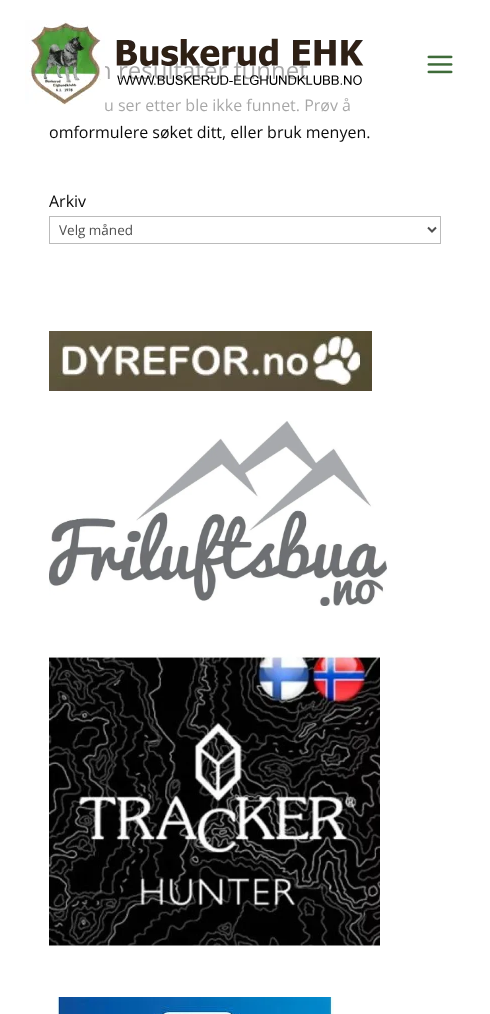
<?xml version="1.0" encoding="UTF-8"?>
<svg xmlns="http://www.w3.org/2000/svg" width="490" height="1014">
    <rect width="100%" height="100%" fill="#FFFFFF"/>
    <text x="97" y="79" font-family="Open Sans" font-size="24" fill="#0A0A0A">n resultater funnet</text>
    <text x="104" y="111" font-family="Open Sans" font-size="16" fill="#0A0A0A">u ser etter ble ikke funnet. Prøv å</text>
    <rect x="98" y="60" width="253" height="52" fill="#FFFFFF" fill-opacity="0.64"/>
    <image x="25" y="20" width="339" height="85" href="img_01.png"/>
    <image x="427" y="55" width="26" height="19" href="img_02.png"/>
    <text x="49" y="138" font-family="Open Sans" font-size="16" fill="#0A0A0A">omformulere søket ditt, eller bruk menyen.</text>
    <text x="49" y="207" font-family="Open Sans" font-size="16" fill="#0A0A0A">Arkiv</text>
    <rect x="49.5" y="216.5" width="391" height="27" fill="none" stroke="#BBBBBB"/>
    <path d="M 428 227.5 L 432 231.5 L 436 227.5" fill="none" stroke="#4E4E4E" stroke-width="2"/>
    <text x="59" y="235" font-family="Open Sans" font-size="13.5" fill="#4E4E4E">Velg måned</text>
    <image x="49" y="331" width="323" height="60" href="img_03.png"/>
    <image x="49" y="421" width="338" height="185" href="img_04.png"/>
    <image x="49" y="654" width="331" height="293" href="img_05.png"/>
    <image x="57" y="997" width="277" height="17" href="img_06.png"/>
</svg>
